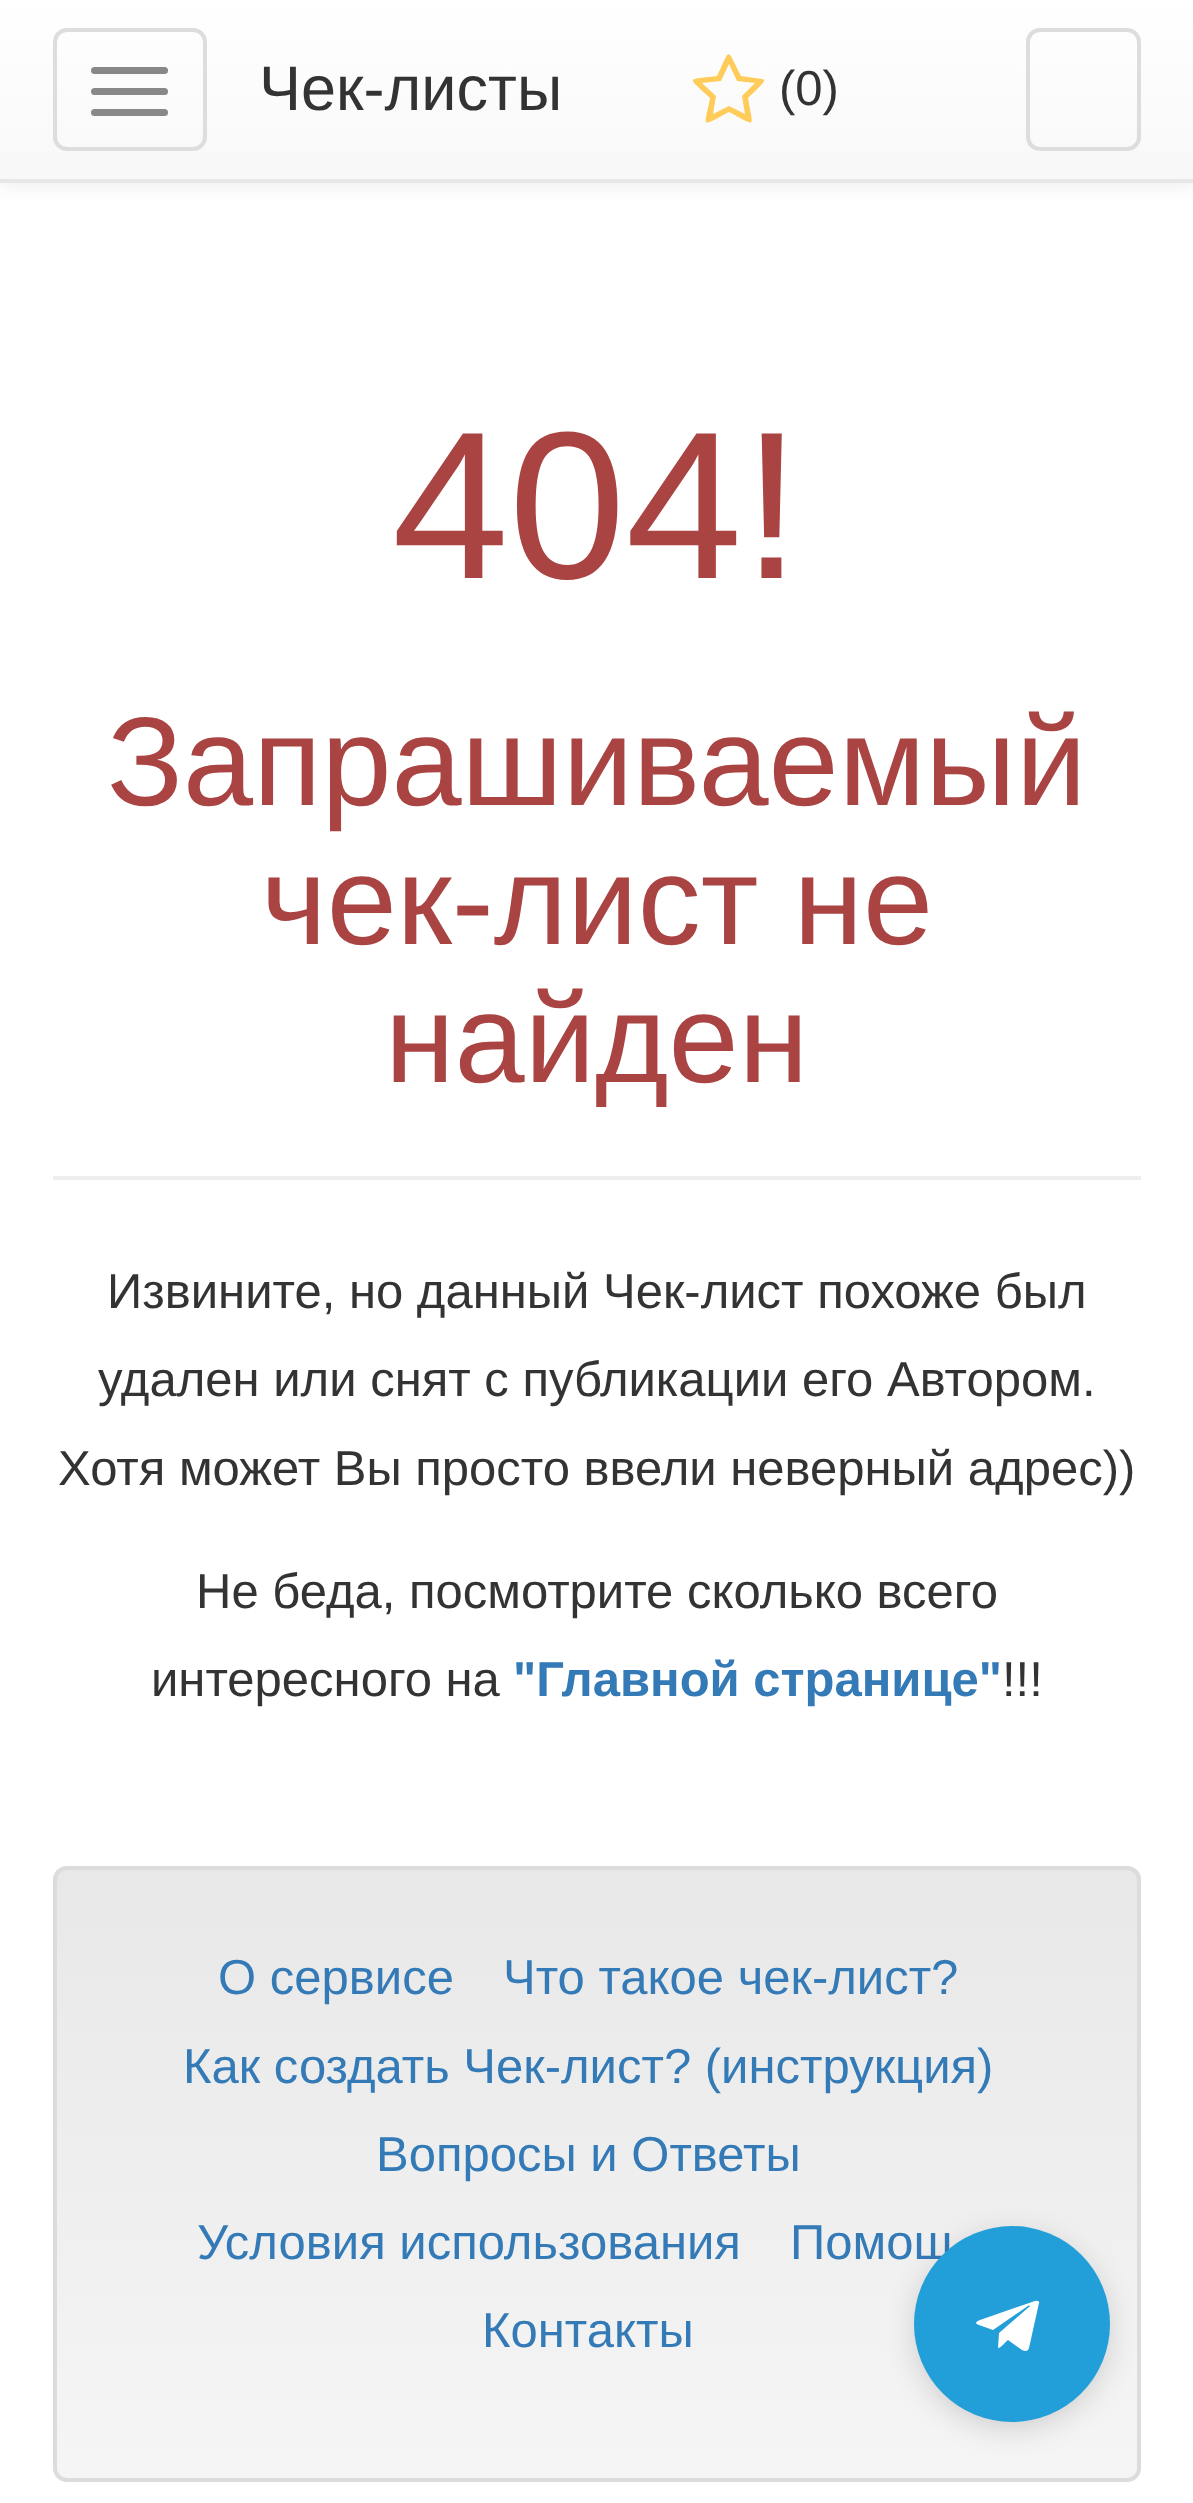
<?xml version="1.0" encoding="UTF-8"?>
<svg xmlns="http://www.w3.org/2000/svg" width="1193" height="2503">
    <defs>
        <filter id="blur1" x="-50%" y="-200%" width="200%" height="500%"><feGaussianBlur stdDeviation="9"/></filter>
        <linearGradient id="g1" gradientUnits="userSpaceOnUse" x1="597" y1="0" x2="597" y2="179"><stop offset="0" stop-color="#FFFFFF"/><stop offset="1" stop-color="#F8F8F8"/></linearGradient>
        <clipPath id="clip1"><rect x="53" y="1866" width="1088" height="616" rx="14"/></clipPath>
        <linearGradient id="g2" gradientUnits="userSpaceOnUse" x1="597" y1="1869" x2="597" y2="2478"><stop offset="0" stop-color="#E8E8E8"/><stop offset="1" stop-color="#F5F5F5"/></linearGradient>
        <filter id="blur2" x="-50%" y="-200%" width="200%" height="500%"><feGaussianBlur stdDeviation="14"/></filter>
    </defs>
    <rect width="100%" height="100%" fill="#FFFFFF"/>
    <rect x="0" y="4" width="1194" height="182" fill="#000000" fill-opacity="0.07" filter="url(#blur1)"/>
    <rect x="0" y="0" width="1193" height="179" fill="url(#g1)"/>
    <rect x="0" y="179" width="1193" height="4" fill="#E7E7E7"/>
    <rect x="55" y="30" width="150" height="119" rx="12" fill="none" stroke="#DDDDDD" stroke-width="4"/>
    <rect x="91" y="67" width="77" height="7" rx="3.5" fill="#888888"/>
    <rect x="91" y="88" width="77" height="7" rx="3.5" fill="#888888"/>
    <rect x="91" y="109" width="77" height="7" rx="3.5" fill="#888888"/>
    <text x="259" y="110" font-family="Liberation Sans" font-size="63" fill="#333333">Чек-листы</text>
    <path d="M 742 96 L 755 83 L 737 81 L 729 64 L 721 81 L 702 83 L 716 96 L 713 114 L 729 106 L 745 114 Z M 764 81 C 764 83 750 96 748 98 C 753 129 758 127 729 112 C 700 127 704 129 710 98 C 687 76 685 80 717 76 C 731 47 726 47 741 76 L 762 79 C 764 79 764 80 764 81 Z" fill="#FFCC59"/>
    <text x="779" y="105" font-family="Liberation Sans" font-size="49" fill="#333333">(0)</text>
    <rect x="1028" y="30" width="111" height="119" rx="12" fill="none" stroke="#DDDDDD" stroke-width="4"/>
    <rect x="53" y="1176" width="1088" height="4" fill="#EEEEEE"/>
    <text x="392" y="578" font-family="Liberation Sans" font-size="210" fill="#A94442">404!</text>
    <text x="107" y="805" font-family="Liberation Sans" font-size="126" fill="#A94442">Запрашиваемый</text>
    <text x="261" y="944" font-family="Liberation Sans" font-size="126" fill="#A94442">чек-лист не</text>
    <text x="385" y="1082" font-family="Liberation Sans" font-size="126" fill="#A94442">найден</text>
    <text x="107" y="1308" font-family="Liberation Sans" font-size="49" fill="#333333">Извините, но данный Чек-лист похоже был</text>
    <text x="98" y="1396" font-family="Liberation Sans" font-size="49" fill="#333333">удален или снят с публикации его Автором.</text>
    <text x="58" y="1485" font-family="Liberation Sans" font-size="49" fill="#333333">Хотя может Вы просто ввели неверный адрес))</text>
    <text x="196" y="1608" font-family="Liberation Sans" font-size="49" fill="#333333">Не беда, посмотрите сколько всего</text>
    <text x="151" y="1696" font-family="Liberation Sans" font-size="49" fill="#333333">интересного на</text>
    <text x="513" y="1696" font-family="Liberation Sans" font-size="49" font-weight="700" fill="#337AB7">"Главной странице"</text>
    <text x="1002" y="1696" font-family="Liberation Sans" font-size="49" fill="#333333">!!!</text>
    <g clip-path="url(#clip1)">
        <rect x="53" y="1869" width="1088" height="609" fill="url(#g2)"/>
    </g>
    <rect x="55" y="1868" width="1084" height="612" rx="12" fill="none" stroke="#DCDCDC" stroke-width="4"/>
    <text x="218" y="1994" font-family="Liberation Sans" font-size="49" fill="#337AB7">О сервисе</text>
    <text x="503" y="1994" font-family="Liberation Sans" font-size="49" fill="#337AB7">Что такое чек-лист?</text>
    <text x="183" y="2083" font-family="Liberation Sans" font-size="49" fill="#337AB7">Как создать Чек-лист? (инструкция)</text>
    <text x="376" y="2171" font-family="Liberation Sans" font-size="49" fill="#337AB7">Вопросы и Ответы</text>
    <text x="197" y="2259" font-family="Liberation Sans" font-size="49" fill="#337AB7">Условия использования</text>
    <text x="790" y="2259" font-family="Liberation Sans" font-size="49" fill="#337AB7">Помощ</text>
    <text x="482" y="2347" font-family="Liberation Sans" font-size="49" fill="#337AB7">Контакты</text>
    <rect x="914" y="2233" width="196" height="196" rx="98" fill="#000000" fill-opacity="0.15" filter="url(#blur2)"/>
    <circle cx="1012" cy="2324" r="98" fill="#229ED9"/>
    <path d="M 1039 2303 L 1029 2348 C 1028 2351 1026 2352 1022 2350 L 1008 2340 C 1006 2341 1001 2348 998 2348 L 999 2333 L 1029 2307 C 1031 2306 1029 2305 1028 2306 L 993 2330 L 979 2325 C 975 2324 975 2322 980 2320 L 1035 2301 C 1038 2300 1040 2302 1039 2303 Z" fill="#FFFFFF"/>
</svg>
